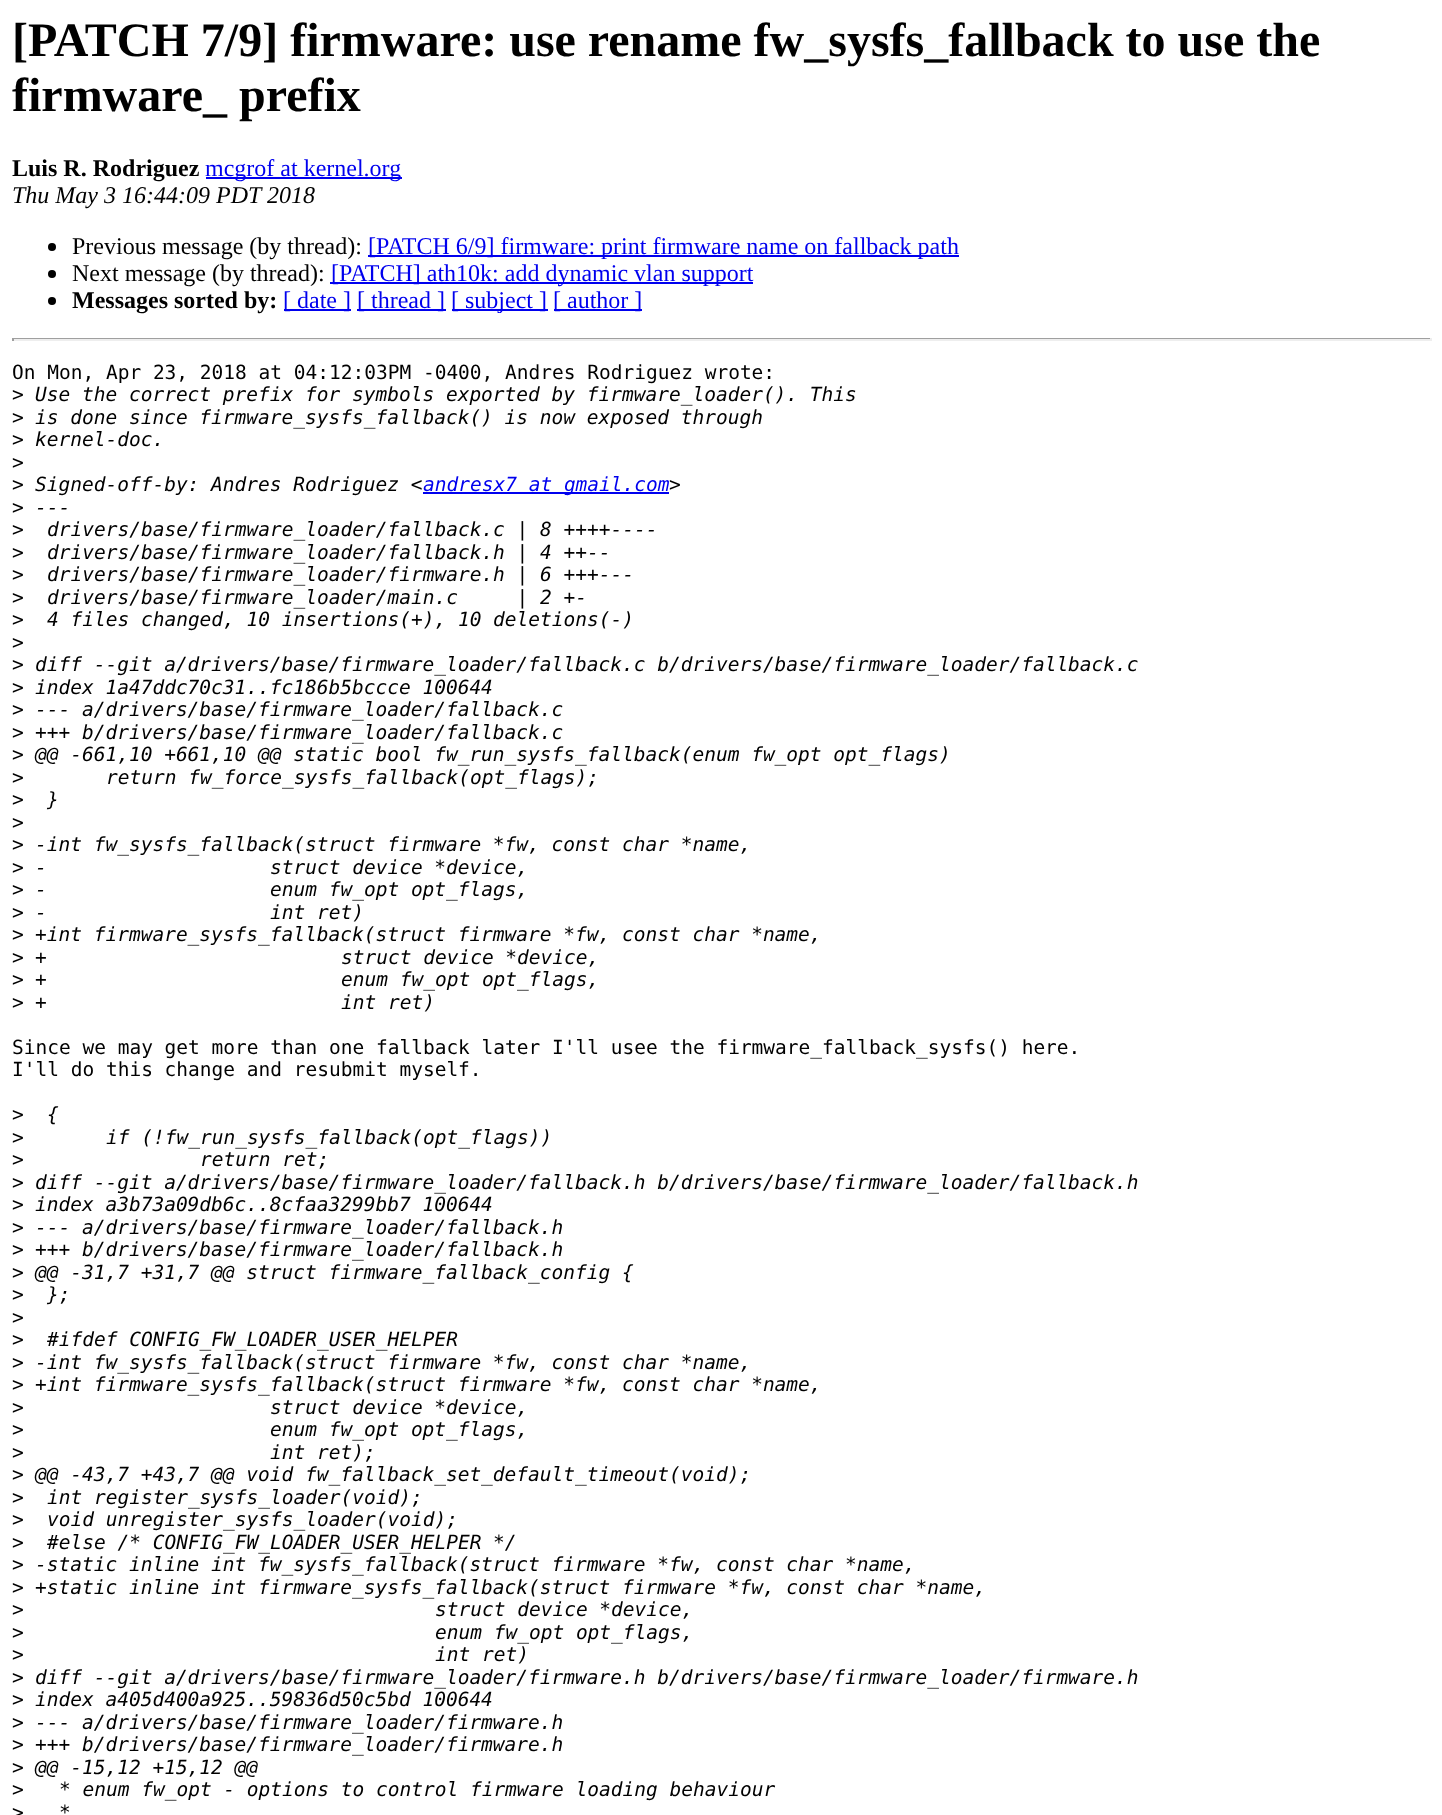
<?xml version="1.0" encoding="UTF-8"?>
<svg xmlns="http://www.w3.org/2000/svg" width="1442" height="1815">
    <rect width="100%" height="100%" fill="#FFFFFF"/>
    <text font-family="Liberation Serif" font-size="48" font-weight="700" fill="#000000">
        <tspan x="12" y="56">[PATCH 7/9] firmware: use rename fw_sysfs_fallback to use the</tspan>
        <tspan x="12" y="111">firmware_ prefix</tspan>
    </text>
    <text x="12" y="176" font-family="Liberation Serif" font-size="24" font-weight="700" fill="#000000">Luis R. Rodriguez</text>
    <rect x="206" y="177" width="196" height="2" fill="#0000EE"/>
    <text x="205" y="176" font-family="Liberation Serif" font-size="24" fill="#0000EE">mcgrof at kernel.org</text>
    <text x="12" y="203" font-family="Liberation Serif" font-size="24" font-style="italic" fill="#000000">Thu May 3 16:44:09 PDT 2018</text>
    <circle cx="52" cy="247" r="4" fill="#000000"/>
    <text x="72" y="254" font-family="Liberation Serif" font-size="24" fill="#000000">Previous message (by thread):</text>
    <rect x="368" y="255" width="591" height="2" fill="#0000EE"/>
    <text x="368" y="254" font-family="Liberation Serif" font-size="24" fill="#0000EE">[PATCH 6/9] firmware: print firmware name on fallback path</text>
    <circle cx="52" cy="274" r="4" fill="#000000"/>
    <text x="72" y="281" font-family="Liberation Serif" font-size="24" fill="#000000">Next message (by thread):</text>
    <rect x="330" y="282" width="423" height="2" fill="#0000EE"/>
    <text x="331" y="281" font-family="Liberation Serif" font-size="24" fill="#0000EE">[PATCH] ath10k: add dynamic vlan support</text>
    <circle cx="52" cy="301" r="4" fill="#000000"/>
    <text x="72" y="308" font-family="Liberation Serif" font-size="24" font-weight="700" fill="#000000">Messages sorted by:</text>
    <rect x="284" y="309" width="67" height="2" fill="#0000EE"/>
    <text x="283" y="308" font-family="Liberation Serif" font-size="24" fill="#0000EE">[ date ]</text>
    <rect x="357" y="309" width="89" height="2" fill="#0000EE"/>
    <text x="357" y="308" font-family="Liberation Serif" font-size="24" fill="#0000EE">[ thread ]</text>
    <rect x="452" y="309" width="96" height="2" fill="#0000EE"/>
    <text x="451" y="308" font-family="Liberation Serif" font-size="24" fill="#0000EE">[ subject ]</text>
    <rect x="554" y="309" width="88" height="2" fill="#0000EE"/>
    <text x="553" y="308" font-family="Liberation Serif" font-size="24" fill="#0000EE">[ author ]</text>
    <rect x="12" y="338" width="1419" height="1" fill="#9F9F9F"/>
    <rect x="1430" y="338" width="2" height="3" fill="#EEEEEE"/>
    <rect x="12" y="339" width="1419" height="2" fill="#EEEEEE"/>
    <rect x="12" y="338" width="2" height="3" fill="#9F9F9F"/>
    <text font-family="DejaVu Sans Mono" font-size="19.5" fill="#000000">
        <tspan x="12" y="379">On Mon, Apr 23, 2018 at 04:12:03PM -0400, Andres Rodriguez wrote:</tspan>
        <tspan x="12" y="401">&gt;</tspan>
    </text>
    <text x="35" y="401" font-family="DejaVu Sans Mono" font-size="19.5" font-style="italic" fill="#000000">Use the correct prefix for symbols exported by firmware_loader(). This</text>
    <text x="12" y="424" font-family="DejaVu Sans Mono" font-size="19.5" fill="#000000">&gt;</text>
    <text x="35" y="424" font-family="DejaVu Sans Mono" font-size="19.5" font-style="italic" fill="#000000">is done since firmware_sysfs_fallback() is now exposed through</text>
    <text x="12" y="446" font-family="DejaVu Sans Mono" font-size="19.5" fill="#000000">&gt;</text>
    <text x="35" y="446" font-family="DejaVu Sans Mono" font-size="19.5" font-style="italic" fill="#000000">kernel-doc.</text>
    <text font-family="DejaVu Sans Mono" font-size="19.5" fill="#000000">
        <tspan x="12" y="469">&gt;</tspan>
        <tspan x="12" y="491">&gt;</tspan>
    </text>
    <text x="35" y="491" font-family="DejaVu Sans Mono" font-size="19.5" font-style="italic" fill="#000000">Signed-off-by: Andres Rodriguez &lt;</text>
    <rect x="423" y="492" width="246" height="2" fill="#0000EE"/>
    <text x="423" y="491" font-family="DejaVu Sans Mono" font-size="19.5" font-style="italic" fill="#0000EE">andresx7 at gmail.com</text>
    <text x="669" y="491" font-family="DejaVu Sans Mono" font-size="19.5" font-style="italic" fill="#000000">&gt;</text>
    <text x="12" y="514" font-family="DejaVu Sans Mono" font-size="19.5" fill="#000000">&gt;</text>
    <text x="35" y="514" font-family="DejaVu Sans Mono" font-size="19.5" font-style="italic" fill="#000000">---</text>
    <text x="12" y="536" font-family="DejaVu Sans Mono" font-size="19.5" fill="#000000">&gt;</text>
    <text x="47" y="536" font-family="DejaVu Sans Mono" font-size="19.5" font-style="italic" fill="#000000">drivers/base/firmware_loader/fallback.c | 8 ++++----</text>
    <text x="12" y="559" font-family="DejaVu Sans Mono" font-size="19.5" fill="#000000">&gt;</text>
    <text x="47" y="559" font-family="DejaVu Sans Mono" font-size="19.5" font-style="italic" fill="#000000">drivers/base/firmware_loader/fallback.h | 4 ++--</text>
    <text x="12" y="581" font-family="DejaVu Sans Mono" font-size="19.5" fill="#000000">&gt;</text>
    <text x="47" y="581" font-family="DejaVu Sans Mono" font-size="19.5" font-style="italic" fill="#000000">drivers/base/firmware_loader/firmware.h | 6 +++---</text>
    <text x="12" y="604" font-family="DejaVu Sans Mono" font-size="19.5" fill="#000000">&gt;</text>
    <text x="47" y="604" font-family="DejaVu Sans Mono" font-size="19.5" font-style="italic" fill="#000000" xml:space="preserve">drivers/base/firmware_loader/main.c     | 2 +-</text>
    <text x="12" y="626" font-family="DejaVu Sans Mono" font-size="19.5" fill="#000000">&gt;</text>
    <text x="47" y="626" font-family="DejaVu Sans Mono" font-size="19.5" font-style="italic" fill="#000000">4 files changed, 10 insertions(+), 10 deletions(-)</text>
    <text font-family="DejaVu Sans Mono" font-size="19.5" fill="#000000">
        <tspan x="12" y="649">&gt;</tspan>
        <tspan x="12" y="671">&gt;</tspan>
    </text>
    <text x="35" y="671" font-family="DejaVu Sans Mono" font-size="19.5" font-style="italic" fill="#000000">diff --git a/drivers/base/firmware_loader/fallback.c b/drivers/base/firmware_loader/fallback.c</text>
    <text x="12" y="694" font-family="DejaVu Sans Mono" font-size="19.5" fill="#000000">&gt;</text>
    <text x="35" y="694" font-family="DejaVu Sans Mono" font-size="19.5" font-style="italic" fill="#000000">index 1a47ddc70c31..fc186b5bccce 100644</text>
    <text x="12" y="716" font-family="DejaVu Sans Mono" font-size="19.5" fill="#000000">&gt;</text>
    <text x="35" y="716" font-family="DejaVu Sans Mono" font-size="19.5" font-style="italic" fill="#000000">--- a/drivers/base/firmware_loader/fallback.c</text>
    <text x="12" y="739" font-family="DejaVu Sans Mono" font-size="19.5" fill="#000000">&gt;</text>
    <text x="35" y="739" font-family="DejaVu Sans Mono" font-size="19.5" font-style="italic" fill="#000000">+++ b/drivers/base/firmware_loader/fallback.c</text>
    <text x="12" y="761" font-family="DejaVu Sans Mono" font-size="19.5" fill="#000000">&gt;</text>
    <text x="35" y="761" font-family="DejaVu Sans Mono" font-size="19.5" font-style="italic" fill="#000000">@@ -661,10 +661,10 @@ static bool fw_run_sysfs_fallback(enum fw_opt opt_flags)</text>
    <text x="12" y="784" font-family="DejaVu Sans Mono" font-size="19.5" fill="#000000">&gt;</text>
    <text x="106" y="784" font-family="DejaVu Sans Mono" font-size="19.5" font-style="italic" fill="#000000">return fw_force_sysfs_fallback(opt_flags);</text>
    <text x="12" y="806" font-family="DejaVu Sans Mono" font-size="19.5" fill="#000000">&gt;</text>
    <text x="47" y="806" font-family="DejaVu Sans Mono" font-size="19.5" font-style="italic" fill="#000000">}</text>
    <text font-family="DejaVu Sans Mono" font-size="19.5" fill="#000000">
        <tspan x="12" y="829">&gt;</tspan>
        <tspan x="12" y="851">&gt;</tspan>
    </text>
    <text x="35" y="851" font-family="DejaVu Sans Mono" font-size="19.5" font-style="italic" fill="#000000">-int fw_sysfs_fallback(struct firmware *fw, const char *name,</text>
    <text x="12" y="874" font-family="DejaVu Sans Mono" font-size="19.5" fill="#000000">&gt;</text>
    <text x="35" y="874" font-family="DejaVu Sans Mono" font-size="19.5" font-style="italic" fill="#000000">-</text>
    <text x="270" y="874" font-family="DejaVu Sans Mono" font-size="19.5" font-style="italic" fill="#000000">struct device *device,</text>
    <text x="12" y="896" font-family="DejaVu Sans Mono" font-size="19.5" fill="#000000">&gt;</text>
    <text x="35" y="896" font-family="DejaVu Sans Mono" font-size="19.5" font-style="italic" fill="#000000">-</text>
    <text x="270" y="896" font-family="DejaVu Sans Mono" font-size="19.5" font-style="italic" fill="#000000">enum fw_opt opt_flags,</text>
    <text x="12" y="919" font-family="DejaVu Sans Mono" font-size="19.5" fill="#000000">&gt;</text>
    <text x="35" y="919" font-family="DejaVu Sans Mono" font-size="19.5" font-style="italic" fill="#000000">-</text>
    <text x="270" y="919" font-family="DejaVu Sans Mono" font-size="19.5" font-style="italic" fill="#000000">int ret)</text>
    <text x="12" y="941" font-family="DejaVu Sans Mono" font-size="19.5" fill="#000000">&gt;</text>
    <text x="35" y="941" font-family="DejaVu Sans Mono" font-size="19.5" font-style="italic" fill="#000000">+int firmware_sysfs_fallback(struct firmware *fw, const char *name,</text>
    <text x="12" y="964" font-family="DejaVu Sans Mono" font-size="19.5" fill="#000000">&gt;</text>
    <text x="35" y="964" font-family="DejaVu Sans Mono" font-size="19.5" font-style="italic" fill="#000000">+</text>
    <text x="341" y="964" font-family="DejaVu Sans Mono" font-size="19.5" font-style="italic" fill="#000000">struct device *device,</text>
    <text x="12" y="986" font-family="DejaVu Sans Mono" font-size="19.5" fill="#000000">&gt;</text>
    <text x="35" y="986" font-family="DejaVu Sans Mono" font-size="19.5" font-style="italic" fill="#000000">+</text>
    <text x="341" y="986" font-family="DejaVu Sans Mono" font-size="19.5" font-style="italic" fill="#000000">enum fw_opt opt_flags,</text>
    <text x="12" y="1009" font-family="DejaVu Sans Mono" font-size="19.5" fill="#000000">&gt;</text>
    <text x="35" y="1009" font-family="DejaVu Sans Mono" font-size="19.5" font-style="italic" fill="#000000">+</text>
    <text x="341" y="1009" font-family="DejaVu Sans Mono" font-size="19.5" font-style="italic" fill="#000000">int ret)</text>
    <text font-family="DejaVu Sans Mono" font-size="19.5" fill="#000000">
        <tspan x="12" y="1054">Since we may get more than one fallback later I'll usee the firmware_fallback_sysfs() here.</tspan>
        <tspan x="12" y="1076">I'll do this change and resubmit myself.</tspan>
    </text>
    <text x="12" y="1121" font-family="DejaVu Sans Mono" font-size="19.5" fill="#000000">&gt;</text>
    <text x="47" y="1121" font-family="DejaVu Sans Mono" font-size="19.5" font-style="italic" fill="#000000">{</text>
    <text x="12" y="1144" font-family="DejaVu Sans Mono" font-size="19.5" fill="#000000">&gt;</text>
    <text x="106" y="1144" font-family="DejaVu Sans Mono" font-size="19.5" font-style="italic" fill="#000000">if (!fw_run_sysfs_fallback(opt_flags))</text>
    <text x="12" y="1166" font-family="DejaVu Sans Mono" font-size="19.5" fill="#000000">&gt;</text>
    <text x="200" y="1166" font-family="DejaVu Sans Mono" font-size="19.5" font-style="italic" fill="#000000">return ret;</text>
    <text x="12" y="1189" font-family="DejaVu Sans Mono" font-size="19.5" fill="#000000">&gt;</text>
    <text x="35" y="1189" font-family="DejaVu Sans Mono" font-size="19.5" font-style="italic" fill="#000000">diff --git a/drivers/base/firmware_loader/fallback.h b/drivers/base/firmware_loader/fallback.h</text>
    <text x="12" y="1211" font-family="DejaVu Sans Mono" font-size="19.5" fill="#000000">&gt;</text>
    <text x="35" y="1211" font-family="DejaVu Sans Mono" font-size="19.5" font-style="italic" fill="#000000">index a3b73a09db6c..8cfaa3299bb7 100644</text>
    <text x="12" y="1234" font-family="DejaVu Sans Mono" font-size="19.5" fill="#000000">&gt;</text>
    <text x="35" y="1234" font-family="DejaVu Sans Mono" font-size="19.5" font-style="italic" fill="#000000">--- a/drivers/base/firmware_loader/fallback.h</text>
    <text x="12" y="1256" font-family="DejaVu Sans Mono" font-size="19.5" fill="#000000">&gt;</text>
    <text x="35" y="1256" font-family="DejaVu Sans Mono" font-size="19.5" font-style="italic" fill="#000000">+++ b/drivers/base/firmware_loader/fallback.h</text>
    <text x="12" y="1279" font-family="DejaVu Sans Mono" font-size="19.5" fill="#000000">&gt;</text>
    <text x="35" y="1279" font-family="DejaVu Sans Mono" font-size="19.5" font-style="italic" fill="#000000">@@ -31,7 +31,7 @@ struct firmware_fallback_config {</text>
    <text x="12" y="1301" font-family="DejaVu Sans Mono" font-size="19.5" fill="#000000">&gt;</text>
    <text x="47" y="1301" font-family="DejaVu Sans Mono" font-size="19.5" font-style="italic" fill="#000000">};</text>
    <text font-family="DejaVu Sans Mono" font-size="19.5" fill="#000000">
        <tspan x="12" y="1324">&gt;</tspan>
        <tspan x="12" y="1346">&gt;</tspan>
    </text>
    <text x="47" y="1346" font-family="DejaVu Sans Mono" font-size="19.5" font-style="italic" fill="#000000">#ifdef CONFIG_FW_LOADER_USER_HELPER</text>
    <text x="12" y="1369" font-family="DejaVu Sans Mono" font-size="19.5" fill="#000000">&gt;</text>
    <text x="35" y="1369" font-family="DejaVu Sans Mono" font-size="19.5" font-style="italic" fill="#000000">-int fw_sysfs_fallback(struct firmware *fw, const char *name,</text>
    <text x="12" y="1391" font-family="DejaVu Sans Mono" font-size="19.5" fill="#000000">&gt;</text>
    <text x="35" y="1391" font-family="DejaVu Sans Mono" font-size="19.5" font-style="italic" fill="#000000">+int firmware_sysfs_fallback(struct firmware *fw, const char *name,</text>
    <text x="12" y="1414" font-family="DejaVu Sans Mono" font-size="19.5" fill="#000000">&gt;</text>
    <text x="270" y="1414" font-family="DejaVu Sans Mono" font-size="19.5" font-style="italic" fill="#000000">struct device *device,</text>
    <text x="12" y="1436" font-family="DejaVu Sans Mono" font-size="19.5" fill="#000000">&gt;</text>
    <text x="270" y="1436" font-family="DejaVu Sans Mono" font-size="19.5" font-style="italic" fill="#000000">enum fw_opt opt_flags,</text>
    <text x="12" y="1459" font-family="DejaVu Sans Mono" font-size="19.5" fill="#000000">&gt;</text>
    <text x="270" y="1459" font-family="DejaVu Sans Mono" font-size="19.5" font-style="italic" fill="#000000">int ret);</text>
    <text x="12" y="1481" font-family="DejaVu Sans Mono" font-size="19.5" fill="#000000">&gt;</text>
    <text x="35" y="1481" font-family="DejaVu Sans Mono" font-size="19.5" font-style="italic" fill="#000000">@@ -43,7 +43,7 @@ void fw_fallback_set_default_timeout(void);</text>
    <text x="12" y="1504" font-family="DejaVu Sans Mono" font-size="19.5" fill="#000000">&gt;</text>
    <text x="47" y="1504" font-family="DejaVu Sans Mono" font-size="19.5" font-style="italic" fill="#000000">int register_sysfs_loader(void);</text>
    <text x="12" y="1526" font-family="DejaVu Sans Mono" font-size="19.5" fill="#000000">&gt;</text>
    <text x="47" y="1526" font-family="DejaVu Sans Mono" font-size="19.5" font-style="italic" fill="#000000">void unregister_sysfs_loader(void);</text>
    <text x="12" y="1549" font-family="DejaVu Sans Mono" font-size="19.5" fill="#000000">&gt;</text>
    <text x="47" y="1549" font-family="DejaVu Sans Mono" font-size="19.5" font-style="italic" fill="#000000">#else /* CONFIG_FW_LOADER_USER_HELPER */</text>
    <text x="12" y="1571" font-family="DejaVu Sans Mono" font-size="19.5" fill="#000000">&gt;</text>
    <text x="35" y="1571" font-family="DejaVu Sans Mono" font-size="19.5" font-style="italic" fill="#000000">-static inline int fw_sysfs_fallback(struct firmware *fw, const char *name,</text>
    <text x="12" y="1594" font-family="DejaVu Sans Mono" font-size="19.5" fill="#000000">&gt;</text>
    <text x="35" y="1594" font-family="DejaVu Sans Mono" font-size="19.5" font-style="italic" fill="#000000">+static inline int firmware_sysfs_fallback(struct firmware *fw, const char *name,</text>
    <text x="12" y="1616" font-family="DejaVu Sans Mono" font-size="19.5" fill="#000000">&gt;</text>
    <text x="435" y="1616" font-family="DejaVu Sans Mono" font-size="19.5" font-style="italic" fill="#000000">struct device *device,</text>
    <text x="12" y="1639" font-family="DejaVu Sans Mono" font-size="19.5" fill="#000000">&gt;</text>
    <text x="435" y="1639" font-family="DejaVu Sans Mono" font-size="19.5" font-style="italic" fill="#000000">enum fw_opt opt_flags,</text>
    <text x="12" y="1661" font-family="DejaVu Sans Mono" font-size="19.5" fill="#000000">&gt;</text>
    <text x="435" y="1661" font-family="DejaVu Sans Mono" font-size="19.5" font-style="italic" fill="#000000">int ret)</text>
    <text x="12" y="1684" font-family="DejaVu Sans Mono" font-size="19.5" fill="#000000">&gt;</text>
    <text x="35" y="1684" font-family="DejaVu Sans Mono" font-size="19.5" font-style="italic" fill="#000000">diff --git a/drivers/base/firmware_loader/firmware.h b/drivers/base/firmware_loader/firmware.h</text>
    <text x="12" y="1706" font-family="DejaVu Sans Mono" font-size="19.5" fill="#000000">&gt;</text>
    <text x="35" y="1706" font-family="DejaVu Sans Mono" font-size="19.5" font-style="italic" fill="#000000">index a405d400a925..59836d50c5bd 100644</text>
    <text x="12" y="1729" font-family="DejaVu Sans Mono" font-size="19.5" fill="#000000">&gt;</text>
    <text x="35" y="1729" font-family="DejaVu Sans Mono" font-size="19.5" font-style="italic" fill="#000000">--- a/drivers/base/firmware_loader/firmware.h</text>
    <text x="12" y="1751" font-family="DejaVu Sans Mono" font-size="19.5" fill="#000000">&gt;</text>
    <text x="35" y="1751" font-family="DejaVu Sans Mono" font-size="19.5" font-style="italic" fill="#000000">+++ b/drivers/base/firmware_loader/firmware.h</text>
    <text x="12" y="1774" font-family="DejaVu Sans Mono" font-size="19.5" fill="#000000">&gt;</text>
    <text x="35" y="1774" font-family="DejaVu Sans Mono" font-size="19.5" font-style="italic" fill="#000000">@@ -15,12 +15,12 @@</text>
    <text x="12" y="1796" font-family="DejaVu Sans Mono" font-size="19.5" fill="#000000">&gt;</text>
    <text x="59" y="1796" font-family="DejaVu Sans Mono" font-size="19.5" font-style="italic" fill="#000000">* enum fw_opt - options to control firmware loading behaviour</text>
    <text x="12" y="1819" font-family="DejaVu Sans Mono" font-size="19.5" fill="#000000">&gt;</text>
    <text x="59" y="1819" font-family="DejaVu Sans Mono" font-size="19.5" font-style="italic" fill="#000000">*</text>
</svg>
